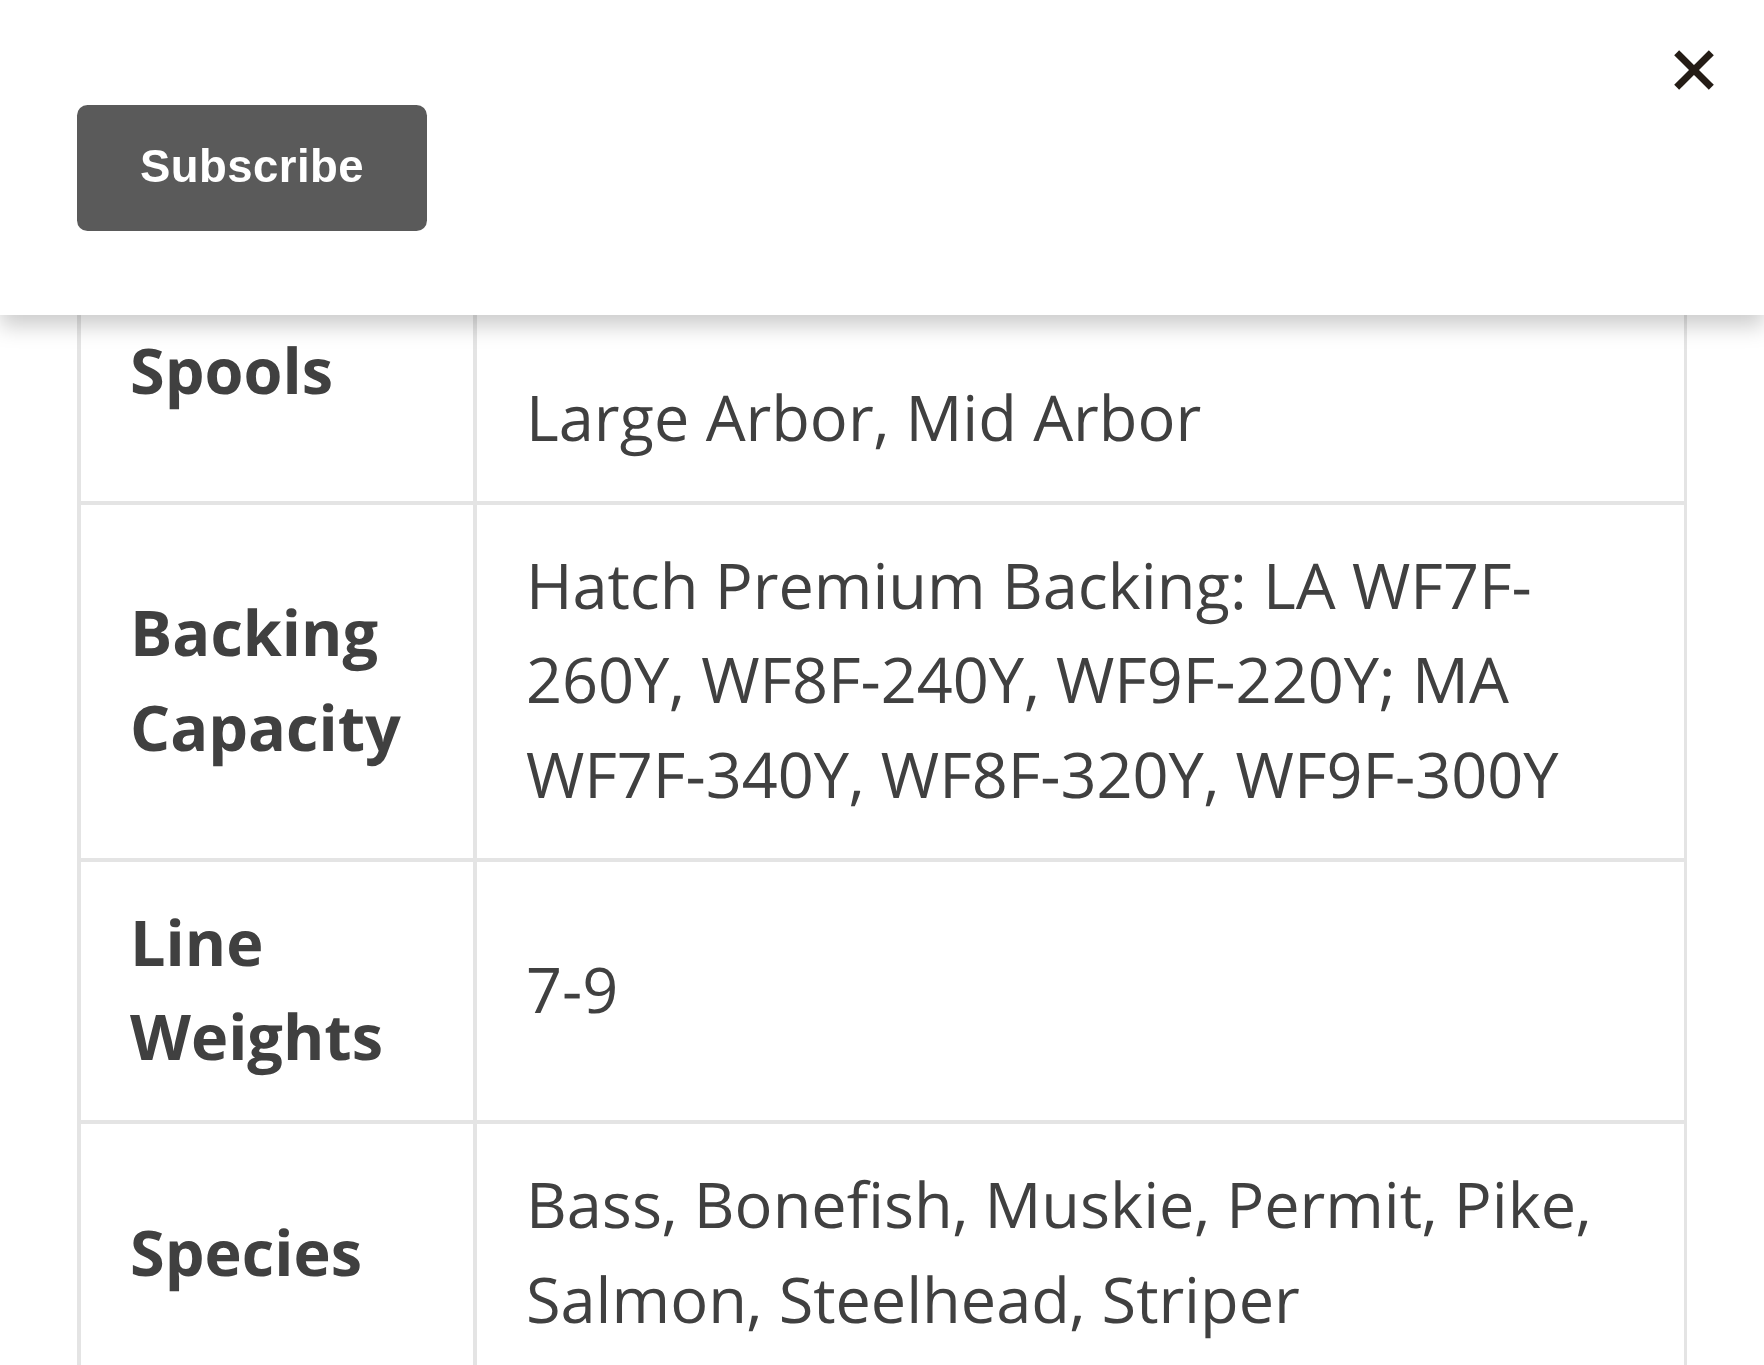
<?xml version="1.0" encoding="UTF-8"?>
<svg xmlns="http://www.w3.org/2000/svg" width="1764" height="1365">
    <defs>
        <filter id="blur1" x="-50%" y="-200%" width="200%" height="500%"><feGaussianBlur stdDeviation="10.5"/></filter>
    </defs>
    <rect width="100%" height="100%" fill="#FFFFFF"/>
    <rect x="473" y="501" width="1214" height="4" fill="#E4E4E4"/>
    <rect x="473" y="858" width="1214" height="4" fill="#E4E4E4"/>
    <rect x="473" y="1120" width="1214" height="4" fill="#E4E4E4"/>
    <rect x="473" y="1120" width="4" height="245" fill="#E4E4E4"/>
    <rect x="77" y="1120" width="399" height="4" fill="#E4E4E4"/>
    <rect x="473" y="858" width="4" height="266" fill="#E4E4E4"/>
    <rect x="77" y="858" width="399" height="4" fill="#E4E4E4"/>
    <rect x="473" y="501" width="4" height="360" fill="#E4E4E4"/>
    <rect x="77" y="501" width="399" height="4" fill="#E4E4E4"/>
    <rect x="473" y="315" width="4" height="189" fill="#E4E4E4"/>
    <rect x="77" y="1120" width="4" height="245" fill="#E4E4E4"/>
    <rect x="77" y="858" width="4" height="266" fill="#E4E4E4"/>
    <rect x="77" y="315" width="4" height="546" fill="#E4E4E4"/>
    <rect x="1684" y="1120" width="3" height="245" fill="#E4E4E4"/>
    <rect x="1684" y="858" width="3" height="266" fill="#E4E4E4"/>
    <rect x="1684" y="315" width="3" height="546" fill="#E4E4E4"/>
    <rect x="0" y="11" width="1764" height="315" fill="#000000" fill-opacity="0.2" filter="url(#blur1)"/>
    <rect x="0" y="0" width="1764" height="315" fill="#FFFFFF"/>
    <image x="76" y="50" width="1638" height="181" href="img_01.png"/>
    <text x="130" y="394" font-family="Open Sans" font-size="63" font-weight="700" fill="#404040">Spools</text>
    <text x="526" y="441" font-family="Open Sans" font-size="63" fill="#404040">Large Arbor, Mid Arbor</text>
    <text font-family="Open Sans" font-size="63" font-weight="700" fill="#404040">
        <tspan x="130" y="656">Backing</tspan>
        <tspan x="130" y="751">Capacity</tspan>
    </text>
    <text font-family="Open Sans" font-size="63" fill="#404040">
        <tspan x="526" y="609">Hatch Premium Backing: LA WF7F-</tspan>
        <tspan x="526" y="703">260Y, WF8F-240Y, WF9F-220Y; MA</tspan>
        <tspan x="526" y="798">WF7F-340Y, WF8F-320Y, WF9F-300Y</tspan>
    </text>
    <text font-family="Open Sans" font-size="63" font-weight="700" fill="#404040">
        <tspan x="130" y="966">Line</tspan>
        <tspan x="130" y="1060">Weights</tspan>
    </text>
    <text x="526" y="1013" font-family="Open Sans" font-size="63" fill="#404040">7-9</text>
    <text x="130" y="1276" font-family="Open Sans" font-size="63" font-weight="700" fill="#404040">Species</text>
    <text font-family="Open Sans" font-size="63" fill="#404040">
        <tspan x="526" y="1228">Bass, Bonefish, Muskie, Permit, Pike,</tspan>
        <tspan x="526" y="1323">Salmon, Steelhead, Striper</tspan>
    </text>
</svg>
